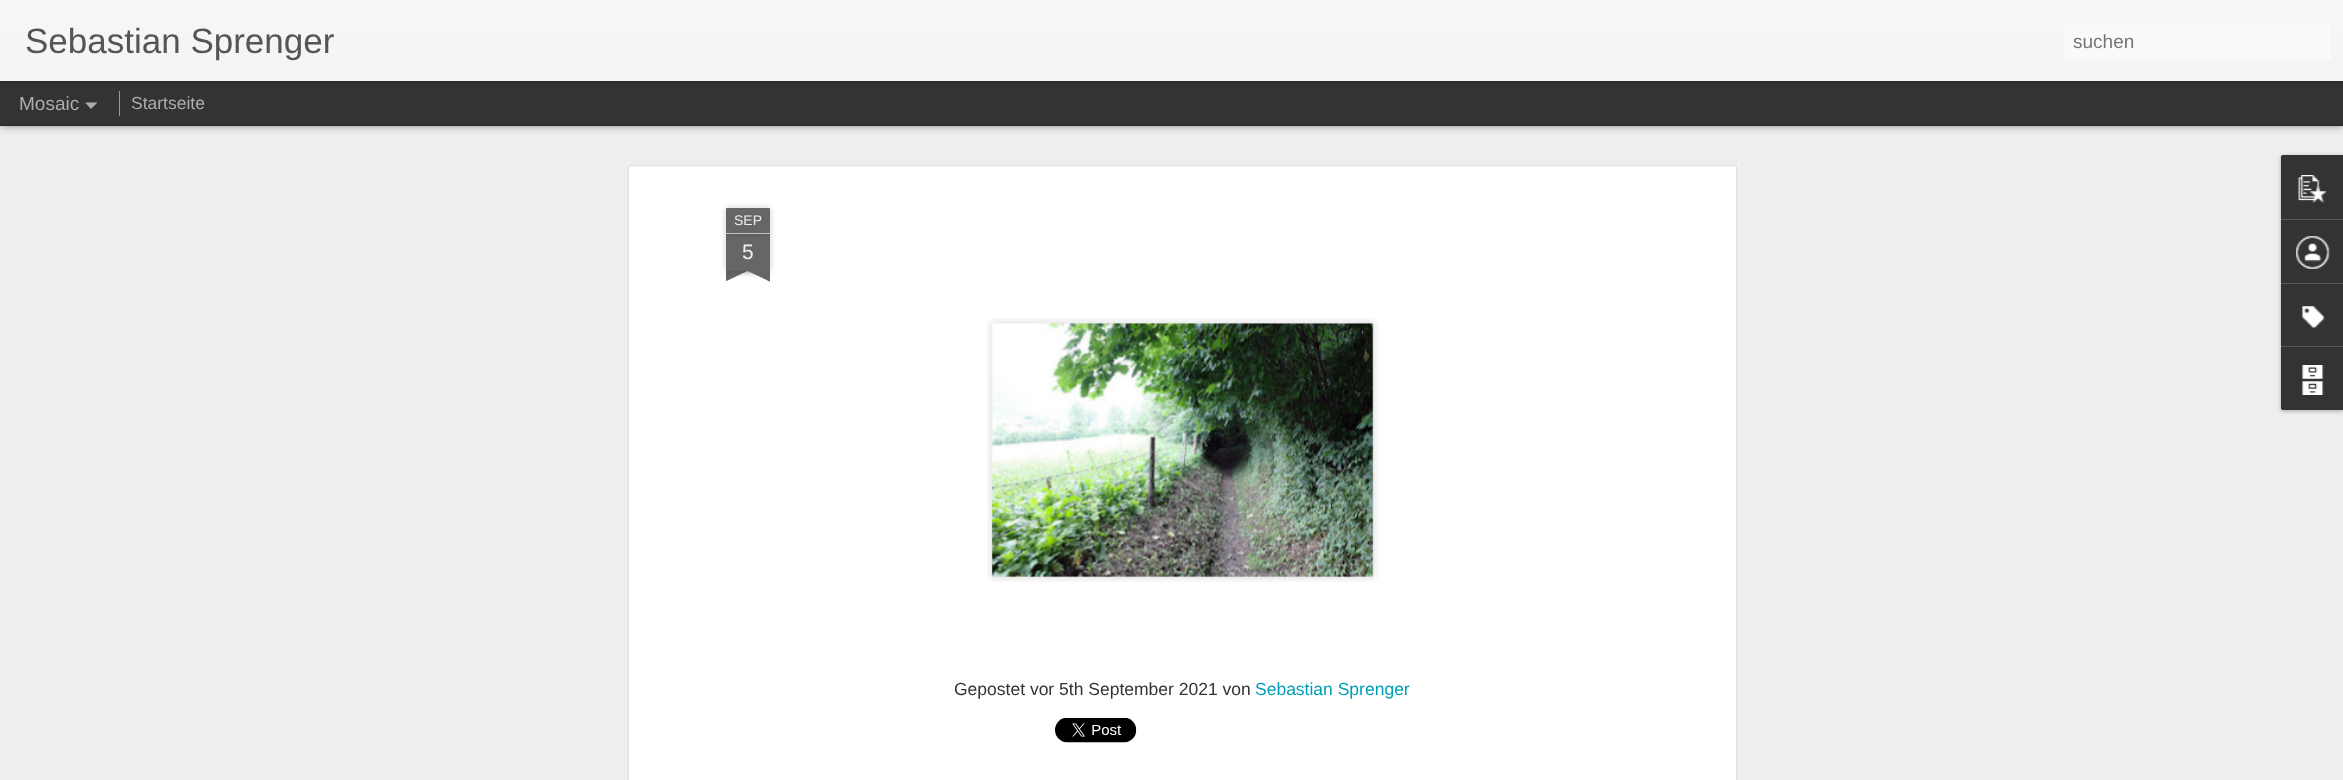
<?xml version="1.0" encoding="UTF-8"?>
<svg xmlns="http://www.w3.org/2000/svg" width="2343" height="780">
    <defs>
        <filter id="blur1" x="-50%" y="-200%" width="200%" height="500%"><feGaussianBlur stdDeviation="5"/></filter>
        <filter id="blur2" x="-50%" y="-200%" width="200%" height="500%"><feGaussianBlur stdDeviation="3"/></filter>
        <linearGradient id="g1" gradientUnits="userSpaceOnUse" x1="0" y1="0" x2="0" y2="81"><stop offset="0" stop-color="#F7F7F7"/><stop offset="1" stop-color="#F4F4F4"/></linearGradient>
        <clipPath id="clip1"><rect x="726" y="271" width="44" height="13"/></clipPath>
        <clipPath id="clip2"><rect x="726" y="271" width="44" height="13"/></clipPath>
        <filter id="blur3" x="-50%" y="-200%" width="200%" height="500%"><feGaussianBlur stdDeviation="2"/></filter>
    </defs>
    <rect width="100%" height="100%" fill="#333333"/>
    <rect x="0" y="126" width="2343" height="654" fill="#EEEEEE"/>
    <rect x="0" y="81" width="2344" height="44" fill="#000000" fill-opacity="0.5" filter="url(#blur1)"/>
    <rect x="0" y="81" width="2343" height="44" fill="#333333"/>
    <rect x="0" y="0" width="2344" height="81" fill="#000000" fill-opacity="0.3" filter="url(#blur2)"/>
    <rect x="0" y="0" width="2343" height="81" fill="url(#g1)"/>
    <text x="25" y="53" font-family="Liberation Sans" font-size="35" fill="#555555">Sebastian Sprenger</text>
    <rect x="2064" y="23" width="267" height="37" rx="4" fill="#FAFAFA"/>
    <text x="2073" y="48" font-family="Liberation Sans" font-size="19" fill="#757575">suchen</text>
    <text x="19" y="110" font-family="Liberation Sans" font-size="19" fill="#ADADAD">Mosaic</text>
    <path d="M 85 102.5 H 97.5 L 91 109 Z" fill="#ADADAD"/>
    <rect x="119" y="91" width="1" height="25" fill="#999999"/>
    <text x="131" y="109" font-family="Liberation Sans" font-size="17.5" fill="#ADADAD">Startseite</text>
    <rect x="626" y="164" width="1113" height="616" fill="#FFFFFF"/>
    <image x="626" y="164" width="1113" height="616" href="img_01.png"/>
    <rect x="726" y="234" width="44" height="37" fill="#000000" fill-opacity="0.2" filter="url(#blur2)"/>
    <rect x="726" y="234" width="44" height="37" fill="#666666"/>
    <rect x="726" y="208" width="44" height="26" rx="1" fill="#000000" fill-opacity="0.2" filter="url(#blur2)"/>
    <path d="M 727 208 H 769 C 769.5 208 770 208.5 770 209 V 234 H 726 V 209 C 726 208.5 726.5 208 727 208 Z" fill="#666666"/>
    <rect x="726" y="233" width="44" height="1" fill="#C2C2C2"/>
    <text x="734" y="225" font-family="Liberation Sans" font-size="14" fill="#EEEEEE">SEP</text>
    <text x="742" y="259" font-family="Liberation Sans" font-size="21" fill="#EEEEEE">5</text>
    <g clip-path="url(#clip1)">
        <rect x="715" y="259" width="63" height="12" fill="#000000" fill-opacity="0.2" filter="url(#blur2)"/>
    </g>
    <g clip-path="url(#clip2)">
        <path d="M 715 273 L 771 246 L 777 257 L 720 284 Z" fill="#666666"/>
    </g>
    <g clip-path="url(#clip1)">
        <rect x="719" y="259" width="62" height="12" fill="#000000" fill-opacity="0.2" filter="url(#blur2)"/>
    </g>
    <g clip-path="url(#clip2)">
        <path d="M 724 246 L 780 273 L 775 284 L 718 257 Z" fill="#666666"/>
    </g>
    <image x="987" y="318" width="392" height="264" href="img_02.png"/>
    <image x="991" y="323" width="382" height="255" href="img_03.png"/>
    <text x="954" y="695" font-family="Liberation Sans" font-size="17.5" fill="#333333">Gepostet vor 5th September 2021 von</text>
    <text x="1255" y="695" font-family="Liberation Sans" font-size="17.5" fill="#009EB8">Sebastian Sprenger</text>
    <image x="1055" y="718" width="82" height="25" href="img_04.png"/>
    <rect x="2281" y="156" width="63" height="255" rx="2.5" fill="#000000" fill-opacity="0.3" filter="url(#blur3)"/>
    <path d="M 2283.5 155 H 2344 V 410 H 2283.5 C 2282 410 2281 409 2281 407.5 V 157.5 C 2281 156 2282 155 2283.5 155 Z" fill="#333333"/>
    <path d="M 2283.5 155 H 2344 V 219 H 2281 V 157.5 C 2281 156 2282 155 2283.5 155 Z" fill="#333333"/>
    <image x="2298" y="175" width="29" height="28" href="img_05.png"/>
    <rect x="2281" y="219" width="62" height="1" fill="#585858"/>
    <image x="2296" y="236" width="34" height="33" href="img_06.png"/>
    <rect x="2281" y="283" width="62" height="1" fill="#585858"/>
    <image x="2302" y="306" width="23" height="22" href="img_07.png"/>
    <path d="M 2281 346 H 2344 V 410 H 2283.5 C 2282 410 2281 409 2281 407.5 Z" fill="#333333"/>
    <rect x="2281" y="346" width="62" height="1" fill="#585858"/>
    <image x="2302" y="365" width="22" height="30" href="img_08.png"/>
</svg>
